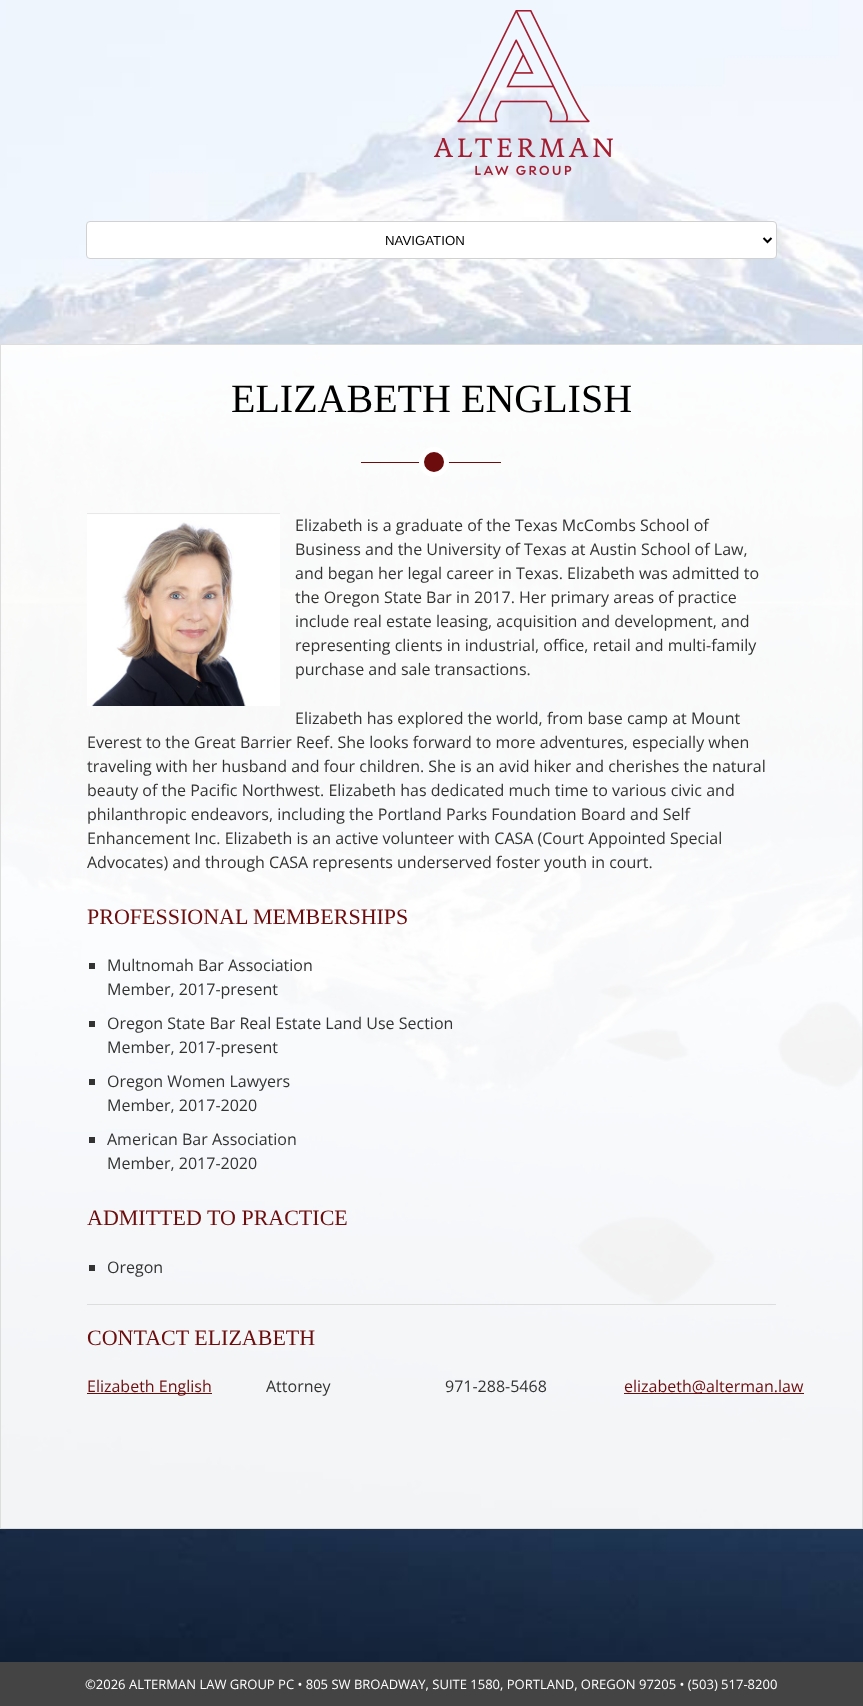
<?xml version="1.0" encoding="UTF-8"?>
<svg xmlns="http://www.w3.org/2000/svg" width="863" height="1706">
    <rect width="100%" height="100%" fill="#FFFFFF"/>
    <image x="0" y="0" width="863" height="1662" href="img_01.png"/>
    <image x="433" y="10" width="180" height="165" href="img_02.png"/>
    <rect x="86.5" y="221.5" width="690" height="37" rx="3.5" fill="#FFFFFF" stroke="#D1D1D1"/>
    <path d="M 763.5 238 L 767.5 242 L 771.5 238" fill="none" stroke="#000000" stroke-width="2"/>
    <text x="385" y="245" font-family="Liberation Sans" font-size="13.25" fill="#000000">NAVIGATION</text>
    <rect x="0.5" y="344.5" width="862" height="1184" fill="#FFFFFF" fill-opacity="0.95" stroke="#DDDDDD"/>
    <text x="231" y="412" font-family="Liberation Serif" font-size="40" fill="#000000">ELIZABETH ENGLISH</text>
    <rect x="361" y="462" width="140" height="1" fill="#6C0C0D"/>
    <circle cx="434" cy="462" r="12.5" fill="#6C0C0D" stroke="#FFFFFF" stroke-width="5"/>
    <image x="87" y="513" width="193" height="193" href="img_03.png"/>
    <text font-family="Open Sans" font-size="16" fill="#333333">
        <tspan x="295" y="531">Elizabeth is a graduate of the Texas McCombs School of</tspan>
        <tspan x="295" y="555">Business and the University of Texas at Austin School of Law,</tspan>
        <tspan x="295" y="579">and began her legal career in Texas. Elizabeth was admitted to</tspan>
        <tspan x="295" y="603">the Oregon State Bar in 2017. Her primary areas of practice</tspan>
        <tspan x="295" y="627">include real estate leasing, acquisition and development, and</tspan>
        <tspan x="295" y="651">representing clients in industrial, office, retail and multi-family</tspan>
        <tspan x="295" y="675">purchase and sale transactions.</tspan>
    </text>
    <text x="295" y="724" font-family="Open Sans" font-size="16" fill="#333333">Elizabeth has explored the world, from base camp at Mount</text>
    <text font-family="Open Sans" font-size="16" fill="#333333">
        <tspan x="87" y="748">Everest to the Great Barrier Reef. She looks forward to more adventures, especially when</tspan>
        <tspan x="87" y="772">traveling with her husband and four children. She is an avid hiker and cherishes the natural</tspan>
        <tspan x="87" y="796">beauty of the Pacific Northwest. Elizabeth has dedicated much time to various civic and</tspan>
        <tspan x="87" y="820">philanthropic endeavors, including the Portland Parks Foundation Board and Self</tspan>
        <tspan x="87" y="844">Enhancement Inc. Elizabeth is an active volunteer with CASA (Court Appointed Special</tspan>
        <tspan x="87" y="868">Advocates) and through CASA represents underserved foster youth in court.</tspan>
    </text>
    <text x="87" y="924" font-family="Liberation Serif" font-size="22" fill="#6C0C0D">PROFESSIONAL MEMBERSHIPS</text>
    <rect x="89" y="963" width="6" height="6" fill="#333333"/>
    <text font-family="Open Sans" font-size="16" fill="#333333">
        <tspan x="107" y="971">Multnomah Bar Association</tspan>
        <tspan x="107" y="995">Member, 2017-present</tspan>
    </text>
    <rect x="89" y="1021" width="6" height="6" fill="#333333"/>
    <text font-family="Open Sans" font-size="16" fill="#333333">
        <tspan x="107" y="1029">Oregon State Bar Real Estate Land Use Section</tspan>
        <tspan x="107" y="1053">Member, 2017-present</tspan>
    </text>
    <rect x="89" y="1079" width="6" height="6" fill="#333333"/>
    <text font-family="Open Sans" font-size="16" fill="#333333">
        <tspan x="107" y="1087">Oregon Women Lawyers</tspan>
        <tspan x="107" y="1111">Member, 2017-2020</tspan>
    </text>
    <rect x="89" y="1137" width="6" height="6" fill="#333333"/>
    <text font-family="Open Sans" font-size="16" fill="#333333">
        <tspan x="107" y="1145">American Bar Association</tspan>
        <tspan x="107" y="1169">Member, 2017-2020</tspan>
    </text>
    <text x="87" y="1225" font-family="Liberation Serif" font-size="22" fill="#6C0C0D">ADMITTED TO PRACTICE</text>
    <rect x="89" y="1265" width="6" height="6" fill="#333333"/>
    <text x="107" y="1273" font-family="Open Sans" font-size="16" fill="#333333">Oregon</text>
    <rect x="87" y="1304" width="689" height="1" fill="#DDDDDD"/>
    <text x="87" y="1345" font-family="Liberation Serif" font-size="22" fill="#6C0C0D">CONTACT ELIZABETH</text>
    <rect x="87" y="1393" width="125" height="1" fill="#6C0C0D"/>
    <text x="87" y="1392" font-family="Open Sans" font-size="16" fill="#6C0C0D">Elizabeth English</text>
    <text x="266" y="1392" font-family="Open Sans" font-size="16" fill="#333333">Attorney</text>
    <text x="445" y="1392" font-family="Open Sans" font-size="16" fill="#333333">971-288-5468</text>
    <rect x="624" y="1393" width="180" height="1" fill="#6C0C0D"/>
    <text x="624" y="1392" font-family="Open Sans" font-size="16" fill="#6C0C0D">elizabeth@alterman.law</text>
    <rect x="0" y="1662" width="863" height="44" fill="#444444"/>
    <text x="85" y="1689" font-family="Open Sans" font-size="13" fill="#FFFFFF">©2026 ALTERMAN LAW GROUP PC • 805 SW BROADWAY, SUITE 1580, PORTLAND, OREGON 97205 • (503) 517-8200</text>
</svg>
